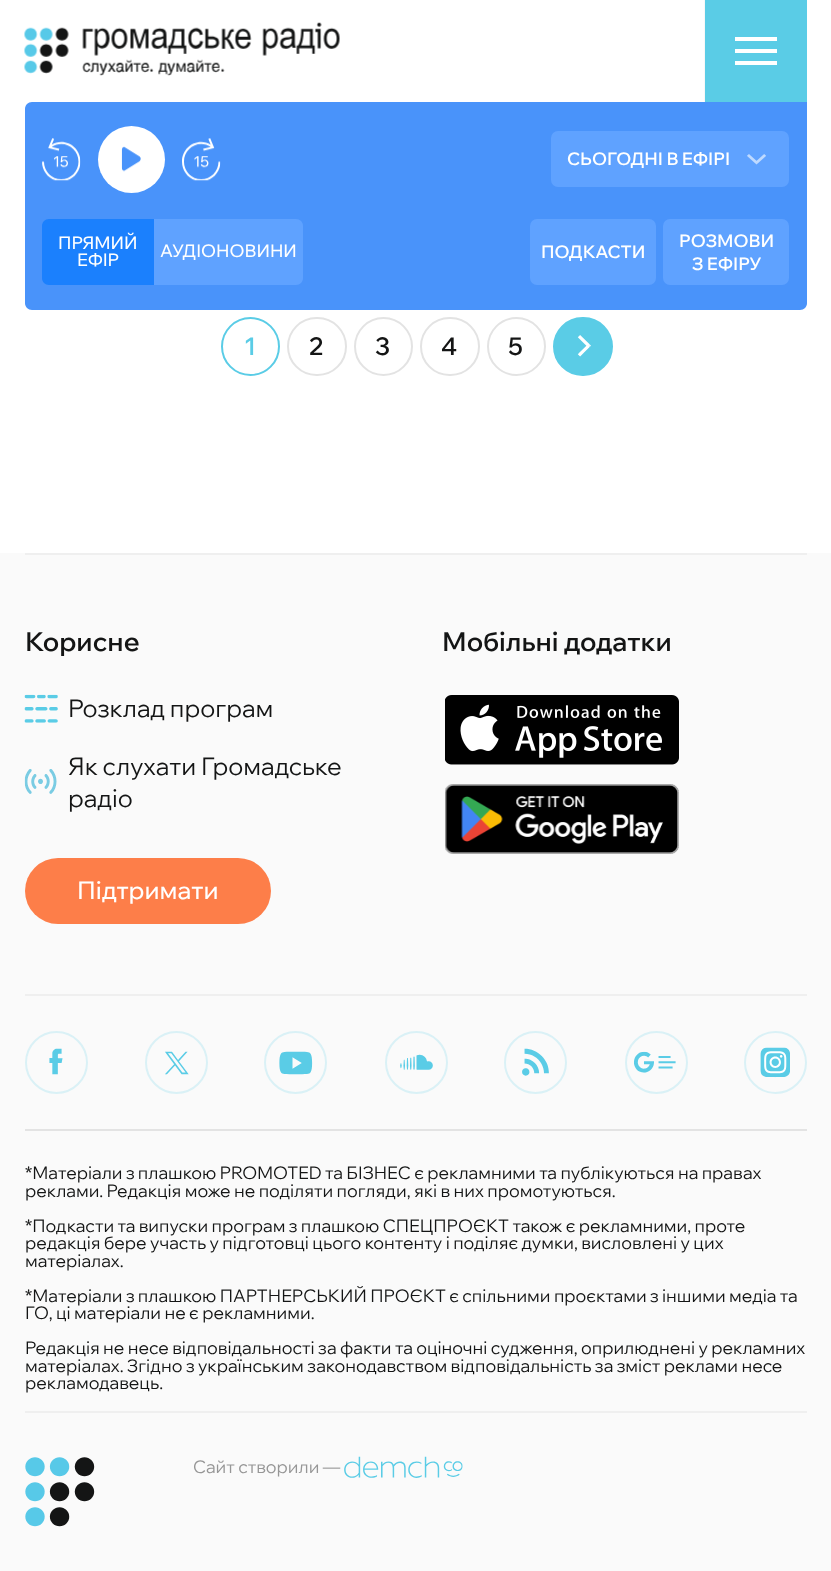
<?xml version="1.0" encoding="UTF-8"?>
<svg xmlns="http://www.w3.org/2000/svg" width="831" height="1571">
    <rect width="100%" height="100%" fill="#FFFFFF"/>
    <rect x="704" y="0" width="1" height="102" fill="#F8F8F8"/>
    <image x="24" y="22" width="316" height="54" href="img_01.png"/>
    <rect x="705" y="0" width="102" height="102" fill="#5ACCE6"/>
    <rect x="735" y="37" width="42" height="4" fill="#FFFFFF"/>
    <rect x="735" y="49" width="42" height="4" fill="#FFFFFF"/>
    <rect x="735" y="61" width="42" height="4" fill="#FFFFFF"/>
    <path d="M 32 102 H 807 V 303 C 807 307 804 310 800 310 H 32 C 28 310 25 307 25 303 V 109 C 25 105 28 102 32 102 Z" fill="#4993FA"/>
    <image x="42" y="138" width="39" height="43" href="img_02.png"/>
    <circle cx="131.5" cy="159.5" r="33.5" fill="#FFFFFF"/>
    <image x="121" y="146" width="20" height="26" href="img_03.png"/>
    <image x="182" y="138" width="39" height="43" href="img_04.png"/>
    <rect x="551" y="131" width="238" height="56" rx="7" fill="#5FA2FF"/>
    <text x="567" y="165" font-family="Wix Madefor Display" font-size="17.5" font-weight="600" fill="#FFFFFF">СЬОГОДНІ В ЕФІРІ</text>
    <image x="747" y="154" width="19" height="11" href="img_05.png"/>
    <path d="M 49 219 H 154 V 285 H 49 C 45 285 42 282 42 278 V 226 C 42 222 45 219 49 219 Z" fill="#1B80FD"/>
    <text x="58" y="249" font-family="Wix Madefor Display" font-size="17.5" font-weight="500" fill="#FFFFFF">ПРЯМИЙ</text>
    <text x="77" y="266" font-family="Wix Madefor Display" font-size="17.5" font-weight="500" fill="#FFFFFF">ЕФIР</text>
    <path d="M 154 219 H 296 C 300 219 303 222 303 226 V 278 C 303 282 300 285 296 285 H 154 Z" fill="#5FA2FF"/>
    <text x="160" y="257" font-family="Wix Madefor Display" font-size="17.5" font-weight="500" fill="#FFFFFF">АУДІОНОВИНИ</text>
    <rect x="530" y="219" width="126" height="66" rx="7" fill="#5FA2FF"/>
    <text x="541" y="258" font-family="Wix Madefor Display" font-size="17.5" font-weight="600" fill="#FFFFFF">ПОДКАСТИ</text>
    <rect x="663" y="219" width="126" height="66" rx="7" fill="#5FA2FF"/>
    <text x="679" y="247" font-family="Wix Madefor Display" font-size="17.5" font-weight="600" fill="#FFFFFF">РОЗМОВИ</text>
    <text x="692" y="270" font-family="Wix Madefor Display" font-size="17.5" font-weight="600" fill="#FFFFFF">З ЕФІРУ</text>
    <circle cx="250.5" cy="346.5" r="28.5" fill="none" stroke="#5ACCE6" stroke-width="2"/>
    <text x="244" y="355" font-family="Wix Madefor Display" font-size="24.5" font-weight="600" fill="#5ACCE6">1</text>
    <rect x="288" y="318" width="58" height="57" rx="28.5" fill="none" stroke="#E3E3E3" stroke-width="2"/>
    <text x="309" y="355" font-family="Wix Madefor Display" font-size="24.5" font-weight="600" fill="#141515">2</text>
    <circle cx="383.5" cy="346.5" r="28.5" fill="none" stroke="#E3E3E3" stroke-width="2"/>
    <text x="375" y="355" font-family="Wix Madefor Display" font-size="24.5" font-weight="600" fill="#141515">3</text>
    <rect x="421" y="318" width="58" height="57" rx="28.5" fill="none" stroke="#E3E3E3" stroke-width="2"/>
    <text x="441" y="355" font-family="Wix Madefor Display" font-size="24.5" font-weight="600" fill="#141515">4</text>
    <circle cx="516.5" cy="346.5" r="28.5" fill="none" stroke="#E3E3E3" stroke-width="2"/>
    <text x="508" y="355" font-family="Wix Madefor Display" font-size="24.5" font-weight="600" fill="#141515">5</text>
    <rect x="554" y="318" width="58" height="57" rx="28.5" fill="#5ACCE6" stroke="#5ACCE6" stroke-width="2"/>
    <image x="577" y="335" width="14" height="22" href="img_06.png"/>
    <rect x="0" y="553" width="831" height="1018" fill="#FAFAFA"/>
    <rect x="25" y="553" width="782" height="2" fill="#EFEFEF"/>
    <text x="25" y="651" font-family="Wix Madefor Display" font-size="26.25" font-weight="600" fill="#141515">Корисне</text>
    <image x="24" y="694" width="34" height="29" href="img_07.png"/>
    <text x="68" y="717" font-family="Wix Madefor Display" font-size="24.5" fill="#141515">Розклад програм</text>
    <image x="24" y="769" width="33" height="25" href="img_08.png"/>
    <text font-family="Wix Madefor Display" font-size="24.5" fill="#141515">
        <tspan x="68" y="775">Як слухати Громадське</tspan>
        <tspan x="68" y="807">радіо</tspan>
    </text>
    <rect x="25" y="858" width="246" height="66" rx="33" fill="#FD7E49"/>
    <text x="77" y="899" font-family="Wix Madefor Display" font-size="24.5" font-weight="500" fill="#FFFFFF">Підтримати</text>
    <text x="442" y="651" font-family="Wix Madefor Display" font-size="26.25" font-weight="600" fill="#141515">Мобільні додатки</text>
    <image x="445" y="695" width="234" height="70" href="img_09.png"/>
    <image x="445" y="784" width="234" height="70" href="img_10.png"/>
    <rect x="25" y="994" width="782" height="2" fill="#EFEFEF"/>
    <circle cx="56.5" cy="1062.5" r="30.5" fill="none" stroke="#DAF1F6" stroke-width="2"/>
    <image x="49" y="1048" width="14" height="27" href="img_11.png"/>
    <circle cx="176.5" cy="1062.5" r="30.5" fill="none" stroke="#DAF1F6" stroke-width="2"/>
    <image x="165" y="1051" width="24" height="24" href="img_12.png"/>
    <circle cx="295.5" cy="1062.5" r="30.5" fill="none" stroke="#DAF1F6" stroke-width="2"/>
    <image x="279" y="1051" width="34" height="24" href="img_13.png"/>
    <circle cx="416.5" cy="1062.5" r="30.5" fill="none" stroke="#DAF1F6" stroke-width="2"/>
    <image x="400" y="1054" width="33" height="16" href="img_14.png"/>
    <circle cx="535.5" cy="1062.5" r="30.5" fill="none" stroke="#DAF1F6" stroke-width="2"/>
    <image x="522" y="1048" width="27" height="28" href="img_15.png"/>
    <circle cx="656.5" cy="1062.5" r="30.5" fill="none" stroke="#DAF1F6" stroke-width="2"/>
    <image x="634" y="1051" width="42" height="22" href="img_16.png"/>
    <circle cx="775.5" cy="1062.5" r="30.5" fill="none" stroke="#DAF1F6" stroke-width="2"/>
    <image x="760" y="1047" width="30" height="31" href="img_17.png"/>
    <rect x="25" y="1129" width="782" height="2" fill="#E3E3E3"/>
    <text font-family="Wix Madefor Display" font-size="17.5" fill="#141515">
        <tspan x="25" y="1179">*Матеріали з плашкою PROMOTED та БІЗНЕС є рекламними та публікуються на правах</tspan>
        <tspan x="25" y="1197">реклами. Редакція може не поділяти погляди, які в них промотуються.</tspan>
    </text>
    <text font-family="Wix Madefor Display" font-size="17.5" fill="#141515">
        <tspan x="25" y="1232">*Подкасти та випуски програм з плашкою СПЕЦПРОЄКТ також є рекламними, проте</tspan>
        <tspan x="25" y="1249">редакція бере участь у підготовці цього контенту і поділяє думки, висловлені у цих</tspan>
        <tspan x="25" y="1267">матеріалах.</tspan>
    </text>
    <text font-family="Wix Madefor Display" font-size="17.5" fill="#141515">
        <tspan x="25" y="1302">*Матеріали з плашкою ПАРТНЕРСЬКИЙ ПРОЄКТ є спільними проєктами з іншими медіа та</tspan>
        <tspan x="25" y="1319">ГО, ці матеріали не є рекламними.</tspan>
    </text>
    <text font-family="Wix Madefor Display" font-size="17.5" fill="#141515">
        <tspan x="25" y="1354">Редакція не несе відповідальності за факти та оціночні судження, оприлюднені у рекламних</tspan>
        <tspan x="25" y="1372">матеріалах. Згідно з українським законодавством відповідальність за зміст реклами несе</tspan>
        <tspan x="25" y="1389">рекламодавець.</tspan>
    </text>
    <rect x="25" y="1411" width="782" height="2" fill="#EFEFEF"/>
    <image x="25" y="1457" width="70" height="70" href="img_18.png"/>
    <text x="193" y="1473" font-family="Wix Madefor Display" font-size="17.5" fill="#969696">Сайт створили —</text>
    <image x="344" y="1456" width="119" height="22" href="img_19.png"/>
</svg>
